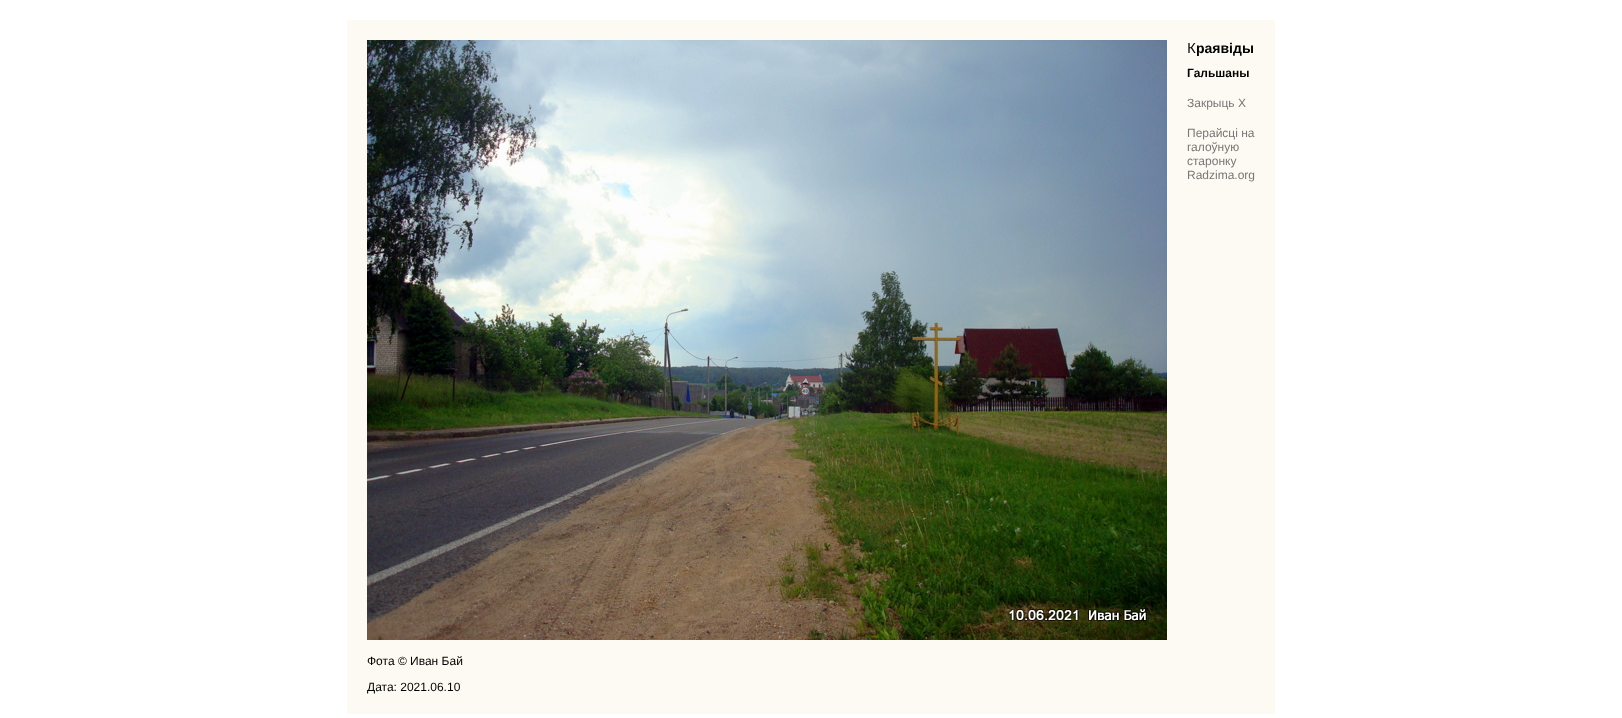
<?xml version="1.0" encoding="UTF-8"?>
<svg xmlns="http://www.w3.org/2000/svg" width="1622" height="718">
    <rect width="100%" height="100%" fill="#FFFFFF"/>
    <rect x="347" y="20" width="928" height="694" fill="#FCFAF2"/>
    <text x="1187" y="53" font-family="Noto Sans" font-size="14" fill="#000000">К</text>
    <text x="1196" y="53" font-family="Liberation Sans" font-size="14" font-weight="700" fill="#000000">раявіды</text>
    <text x="1187" y="77" font-family="Liberation Sans" font-size="12" font-weight="700" fill="#000000">Гальшаны</text>
    <text x="1187" y="107" font-family="Liberation Sans" font-size="12" fill="#777777">Закрыць X</text>
    <text font-family="Liberation Sans" font-size="12" fill="#777777">
        <tspan x="1187" y="137">Перайсці на</tspan>
        <tspan x="1187" y="151">галоўную</tspan>
        <tspan x="1187" y="165">старонку</tspan>
        <tspan x="1187" y="179">Radzima.org</tspan>
    </text>
    <image x="367" y="40" width="800" height="600" href="img_01.png"/>
    <text x="367" y="665" font-family="Liberation Sans" font-size="12" fill="#000000">Фота © Иван Бай</text>
    <text x="367" y="691" font-family="Liberation Sans" font-size="12" fill="#000000">Дата: 2021.06.10</text>
</svg>
